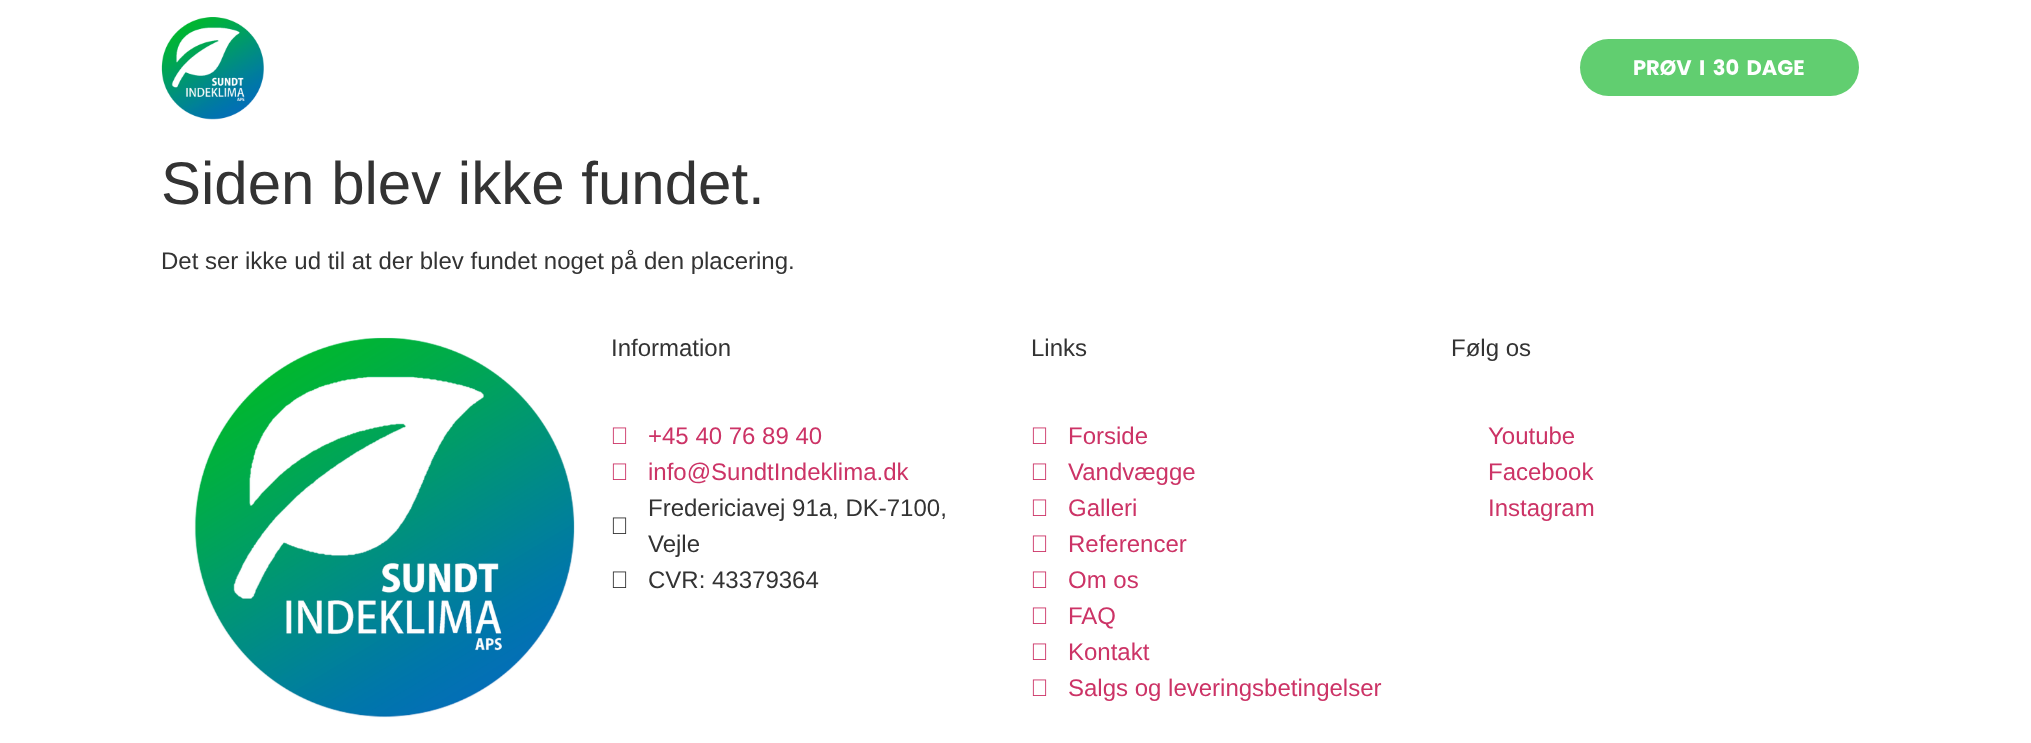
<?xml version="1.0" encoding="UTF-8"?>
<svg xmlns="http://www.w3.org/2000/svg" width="2031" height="743">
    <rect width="100%" height="100%" fill="#FFFFFF"/>
    <image x="161" y="17" width="103" height="103" href="img_01.png"/>
    <rect x="1580" y="39" width="279" height="57" rx="28.5" fill="#61CE70"/>
    <text x="1633" y="75" word-spacing="3" font-family="Poppins" font-size="21" font-weight="700" fill="#FFFFFF">PRØV I 30 DAGE</text>
    <text x="161" y="204" font-family="Liberation Sans" font-size="60" fill="#333333">Siden blev ikke fundet.</text>
    <text x="161" y="269" font-family="Liberation Sans" font-size="24" fill="#333333">Det ser ikke ud til at der blev fundet noget på den placering.</text>
    <image x="194" y="337" width="381" height="381" href="img_02.png"/>
    <text x="611" y="356" font-family="Liberation Sans" font-size="24" fill="#333333">Information</text>
    <image x="612" y="427" width="15" height="17" href="img_03.png"/>
    <text x="648" y="444" font-family="Liberation Sans" font-size="24" fill="#CC3366">+45 40 76 89 40</text>
    <image x="612" y="463" width="15" height="17" href="img_03.png"/>
    <text x="648" y="480" font-family="Liberation Sans" font-size="24" fill="#CC3366">info@SundtIndeklima.dk</text>
    <image x="612" y="517" width="15" height="17" href="img_04.png"/>
    <text font-family="Liberation Sans" font-size="24" fill="#333333">
        <tspan x="648" y="516">Fredericiavej 91a, DK-7100,</tspan>
        <tspan x="648" y="552">Vejle</tspan>
    </text>
    <image x="612" y="571" width="15" height="17" href="img_04.png"/>
    <text x="648" y="588" font-family="Liberation Sans" font-size="24" fill="#333333">CVR: 43379364</text>
    <text x="1031" y="356" font-family="Liberation Sans" font-size="24" fill="#333333">Links</text>
    <image x="1032" y="427" width="15" height="17" href="img_03.png"/>
    <text x="1068" y="444" font-family="Liberation Sans" font-size="24" fill="#CC3366">Forside</text>
    <image x="1032" y="463" width="15" height="17" href="img_03.png"/>
    <text x="1068" y="480" font-family="Liberation Sans" font-size="24" fill="#CC3366">Vandvægge</text>
    <image x="1032" y="499" width="15" height="17" href="img_03.png"/>
    <text x="1068" y="516" font-family="Liberation Sans" font-size="24" fill="#CC3366">Galleri</text>
    <image x="1032" y="535" width="15" height="17" href="img_03.png"/>
    <text x="1068" y="552" font-family="Liberation Sans" font-size="24" fill="#CC3366">Referencer</text>
    <image x="1032" y="571" width="15" height="17" href="img_03.png"/>
    <text x="1068" y="588" font-family="Liberation Sans" font-size="24" fill="#CC3366">Om os</text>
    <image x="1032" y="607" width="15" height="17" href="img_03.png"/>
    <text x="1068" y="624" font-family="Liberation Sans" font-size="24" fill="#CC3366">FAQ</text>
    <image x="1032" y="643" width="15" height="17" href="img_03.png"/>
    <text x="1068" y="660" font-family="Liberation Sans" font-size="24" fill="#CC3366">Kontakt</text>
    <image x="1032" y="679" width="15" height="17" href="img_03.png"/>
    <text x="1068" y="696" font-family="Liberation Sans" font-size="24" fill="#CC3366">Salgs og leveringsbetingelser</text>
    <text x="1451" y="356" font-family="Liberation Sans" font-size="24" fill="#333333">Følg os</text>
    <text font-family="Liberation Sans" font-size="24" fill="#CC3366">
        <tspan x="1488" y="444">Youtube</tspan>
        <tspan x="1488" y="480">Facebook</tspan>
        <tspan x="1488" y="516">Instagram</tspan>
    </text>
</svg>
